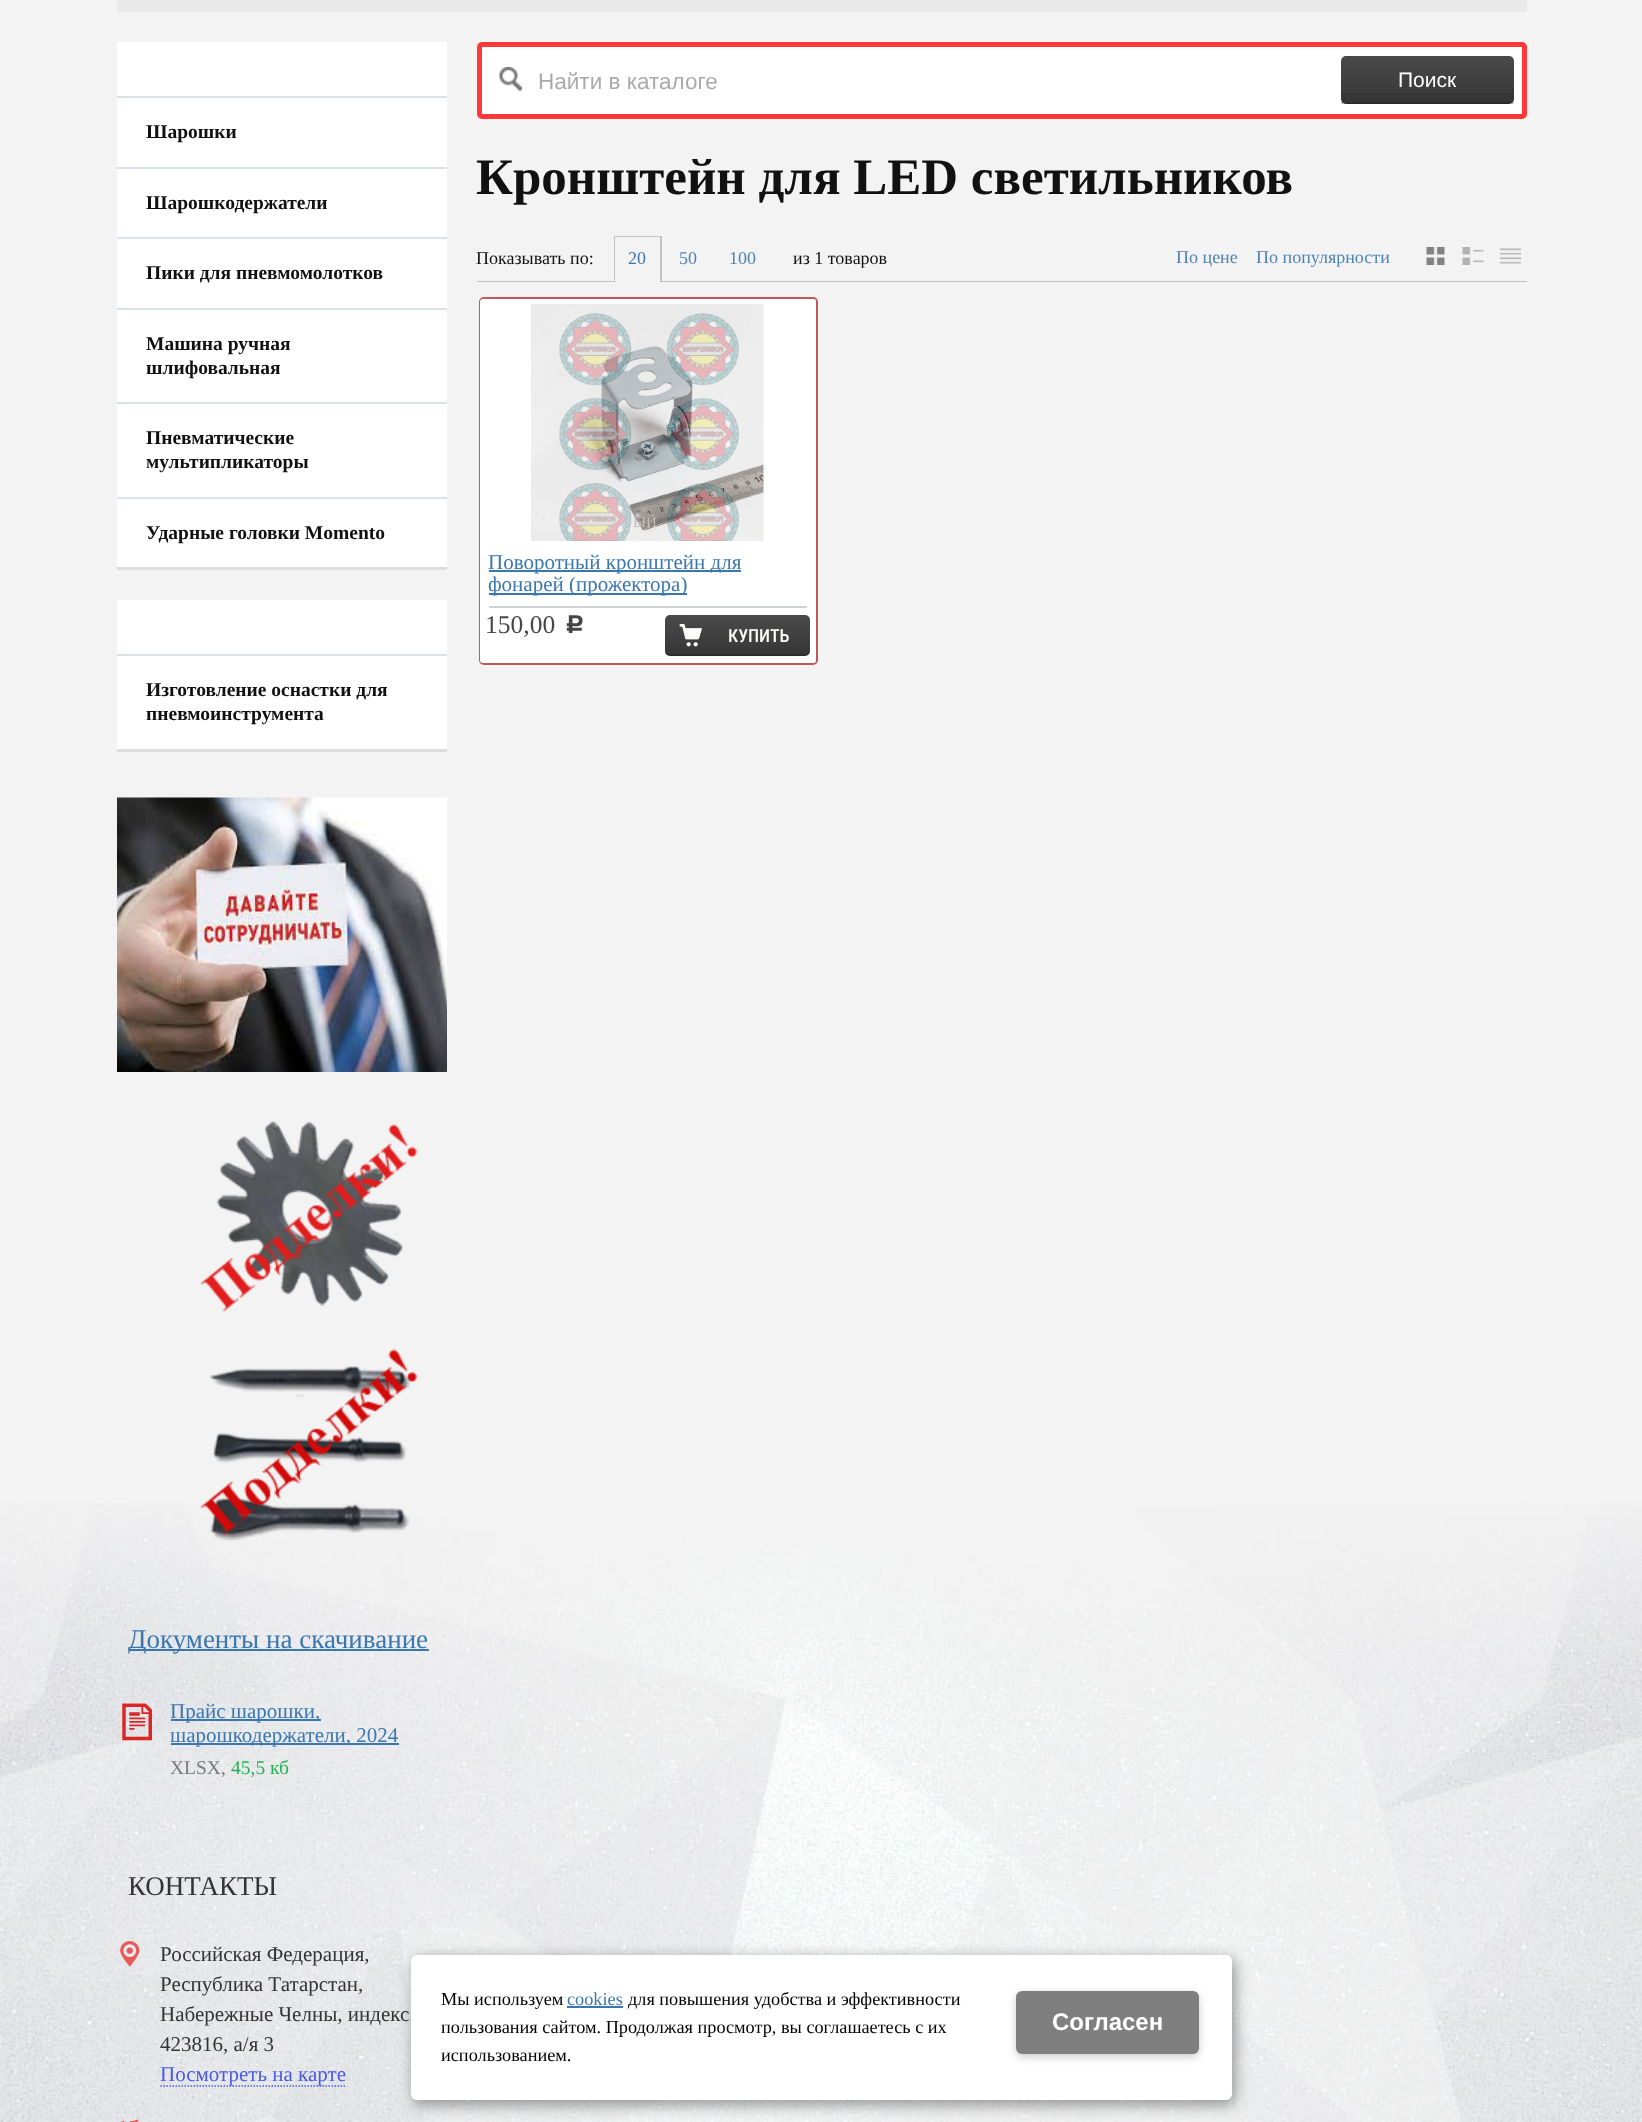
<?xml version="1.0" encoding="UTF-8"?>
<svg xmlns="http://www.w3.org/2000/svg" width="1642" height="2122">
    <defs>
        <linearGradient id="g1" gradientUnits="userSpaceOnUse" x1="1427" y1="55" x2="1427" y2="104"><stop offset="0" stop-color="#FFFFFF" stop-opacity="0.1"/><stop offset="1" stop-color="#FFFFFF" stop-opacity="0"/></linearGradient>
        <linearGradient id="g2" gradientUnits="userSpaceOnUse" x1="737" y1="615" x2="737" y2="656"><stop offset="0" stop-color="#FFFFFF" stop-opacity="0.1"/><stop offset="1" stop-color="#FFFFFF" stop-opacity="0"/></linearGradient>
        <filter id="blur1" x="-50%" y="-200%" width="200%" height="500%"><feGaussianBlur stdDeviation="7.5"/></filter>
        <filter id="blur2" x="-50%" y="-200%" width="200%" height="500%"><feGaussianBlur stdDeviation="4"/></filter>
    </defs>
    <rect width="100%" height="100%" fill="#F3F3F3"/>
    <image x="0" y="1503" width="1642" height="619" href="img_01.png"/>
    <rect x="117" y="0" width="1410" height="12" fill="#E9E9E9"/>
    <rect x="117" y="42" width="330" height="525" fill="#FFFFFF"/>
    <rect x="117" y="567" width="330" height="3" fill="#DCDCDC"/>
    <rect x="117" y="96" width="330" height="2" fill="#D9E2E7"/>
    <text x="146" y="138" font-family="Liberation Serif" font-size="19.5" font-weight="700" fill="#111111">Шарошки</text>
    <rect x="117" y="167" width="330" height="2" fill="#D9E2E7"/>
    <text x="146" y="209" font-family="Liberation Serif" font-size="19.5" font-weight="700" fill="#111111">Шарошкодержатели</text>
    <rect x="117" y="237" width="330" height="2" fill="#D9E2E7"/>
    <text x="146" y="279" font-family="Liberation Serif" font-size="19.5" font-weight="700" fill="#111111">Пики для пневмомолотков</text>
    <rect x="117" y="308" width="330" height="2" fill="#D9E2E7"/>
    <text font-family="Liberation Serif" font-size="19.5" font-weight="700" fill="#111111">
        <tspan x="146" y="350">Машина ручная</tspan>
        <tspan x="146" y="374">шлифовальная</tspan>
    </text>
    <rect x="117" y="402" width="330" height="2" fill="#D9E2E7"/>
    <text font-family="Liberation Serif" font-size="19.5" font-weight="700" fill="#111111">
        <tspan x="146" y="444">Пневматические</tspan>
        <tspan x="146" y="468">мультипликаторы</tspan>
    </text>
    <rect x="117" y="497" width="330" height="2" fill="#D9E2E7"/>
    <text x="146" y="539" font-family="Liberation Serif" font-size="19.5" font-weight="700" fill="#111111">Ударные головки Momento</text>
    <rect x="117" y="600" width="330" height="149" fill="#FFFFFF"/>
    <rect x="117" y="749" width="330" height="3" fill="#DCDCDC"/>
    <rect x="117" y="654" width="330" height="2" fill="#D9E2E7"/>
    <text font-family="Liberation Serif" font-size="19.5" font-weight="700" fill="#111111">
        <tspan x="146" y="696">Изготовление оснастки для</tspan>
        <tspan x="146" y="720">пневмоинструмента</tspan>
    </text>
    <image x="117" y="797" width="330" height="275" href="img_02.png"/>
    <image x="200" y="1121" width="218" height="420" href="img_03.png"/>
    <rect x="129" y="1649" width="300" height="2" fill="#3A77B0"/>
    <text x="128" y="1648" font-family="Liberation Serif" font-size="27" fill="#3A77B0">Документы на скачивание</text>
    <image x="122" y="1703" width="30" height="38" href="img_04.png"/>
    <rect x="171" y="1719" width="150" height="2" fill="#3A77B0"/>
    <text x="170" y="1718" font-family="Liberation Serif" font-size="21" fill="#3A77B0">Прайс шарошки,</text>
    <rect x="171" y="1743" width="228" height="2" fill="#3A77B0"/>
    <text x="170" y="1742" font-family="Liberation Serif" font-size="21" fill="#3A77B0">шарошкодержатели, 2024</text>
    <text x="170" y="1774" font-family="Liberation Serif" font-size="19.5" fill="#777C7F">XLSX,</text>
    <text x="231" y="1774" font-family="Liberation Serif" font-size="19.5" fill="#22B353">45,5 кб</text>
    <text x="128" y="1895" font-family="Liberation Serif" font-size="27" fill="#333333">КОНТАКТЫ</text>
    <image x="120" y="1941" width="20" height="26" href="img_05.png"/>
    <text font-family="Liberation Serif" font-size="21" fill="#333333">
        <tspan x="160" y="1961">Российская Федерация,</tspan>
        <tspan x="160" y="1991">Республика Татарстан,</tspan>
        <tspan x="160" y="2021">Набережные Челны, индекс</tspan>
        <tspan x="160" y="2051">423816, а/я 3</tspan>
    </text>
    <path d="M 160.5 2086 H 346.5" fill="none" stroke="#495AE3" stroke-width="1.5" stroke-dasharray="1.5 1.5"/>
    <text x="160" y="2081" font-family="Liberation Serif" font-size="21" fill="#495AE3">Посмотреть на карте</text>
    <image x="120" y="2119" width="19" height="3" href="img_06.png"/>
    <rect x="479.5" y="44.5" width="1045" height="72" rx="2.5" fill="#FFFFFF" stroke="#FF3939" stroke-width="5"/>
    <image x="499" y="67" width="23" height="24" href="img_07.png"/>
    <text x="538" y="89" font-family="Liberation Sans" font-size="22.5" fill="#AAAAAA">Найти в каталоге</text>
    <rect x="1341" y="56" width="173" height="48" rx="5" fill="#363636"/>
    <rect x="1341" y="56" width="173" height="37" fill="url(#g1)"/>
    <rect x="1341" y="102" width="173" height="2" fill="#000000" fill-opacity="0.2"/>
    <text x="1398" y="87" font-family="Liberation Sans" font-size="21" fill="#FFFFFF">Поиск</text>
    <text x="476" y="194" font-family="Liberation Serif" font-size="51" font-weight="700" fill="#111111">Кронштейн для LED светильников</text>
    <text x="476" y="264" font-family="Liberation Serif" font-size="18" fill="#111111">Показывать по:</text>
    <path d="M 614 236 H 662 L 660 237 H 615 Z" fill="#C2C2C2"/>
    <path d="M 662 236 V 282 L 660 280 V 237 Z M 614 282 V 236 L 615 237 V 280 Z" fill="#000000" fill-opacity="0.2"/>
    <text x="628" y="264" font-family="Liberation Serif" font-size="18" fill="#3A77B0">20</text>
    <rect x="477" y="281" width="138" height="1" fill="#000000" fill-opacity="0.2"/>
    <rect x="660" y="281" width="867" height="1" fill="#000000" fill-opacity="0.2"/>
    <text x="679" y="264" font-family="Liberation Serif" font-size="18" fill="#4D83B7">50</text>
    <text x="729" y="264" font-family="Liberation Serif" font-size="18" fill="#4D83B7">100</text>
    <text x="793" y="264" font-family="Liberation Serif" font-size="18" fill="#111111">из 1 товаров</text>
    <text x="1176" y="263" font-family="Liberation Serif" font-size="18" fill="#4D83B7">По цене</text>
    <text x="1256" y="263" font-family="Liberation Serif" font-size="18" fill="#4D83B7">По популярности</text>
    <image x="1426" y="247" width="19" height="18" href="img_08.png"/>
    <image x="1462" y="247" width="22" height="18" href="img_09.png"/>
    <image x="1500" y="248" width="21" height="16" href="img_10.png"/>
    <rect x="480" y="298" width="337" height="366" rx="4" fill="none" stroke="#C15858" stroke-width="2"/>
    <rect x="480" y="299" width="336" height="364" rx="3" fill="#FFFFFF"/>
    <image x="531" y="304" width="233" height="237" href="img_11.png"/>
    <text x="633" y="527" font-family="Liberation Serif" font-size="15" fill="#C7BFBC">ЫЙ</text>
    <rect x="489" y="606" width="318" height="2" fill="#CED3D6"/>
    <rect x="489" y="570" width="252" height="2" fill="#3A77B0"/>
    <text x="488" y="569" font-family="Liberation Serif" font-size="21" fill="#3A77B0">Поворотный кронштейн для</text>
    <rect x="489" y="593" width="198" height="2" fill="#3A77B0"/>
    <text x="488" y="591" font-family="Liberation Serif" font-size="21" fill="#3A77B0">фонарей (прожектора)</text>
    <text x="485" y="633" font-family="Liberation Serif" font-size="25.5" fill="#464646">150,00</text>
    <text x="565" y="633" font-family="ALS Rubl" font-size="25.5" fill="#464646">c</text>
    <rect x="665" y="615" width="145" height="41" rx="5" fill="#363636"/>
    <rect x="665" y="615" width="145" height="41" rx="5" fill="url(#g2)"/>
    <image x="679" y="623" width="23" height="24" href="img_12.png"/>
    <path d="M 665 652 C 666 655 668 656 670 656 H 805 C 808 656 810 654 810 651 V 650 C 810 652 808 654 806 654 H 669 Z" fill="#000000" fill-opacity="0.2"/>
    <text x="728" y="642" font-family="Roboto Condensed" font-size="18" font-weight="500" fill="#FBFBF8">КУПИТЬ</text>
    <rect x="414" y="1959" width="821" height="146" rx="6" fill="#000000" fill-opacity="0.4" filter="url(#blur1)"/>
    <rect x="411" y="1955" width="821" height="145" rx="6" fill="#FFFFFF"/>
    <text x="441" y="2005" font-family="Liberation Serif" font-size="18.25" fill="#000000">Мы используем</text>
    <text x="567" y="2005" font-family="Liberation Serif" font-size="18.25" fill="#3A77B0">cookies</text>
    <rect x="567" y="2006" width="56" height="2" fill="#3A77B0"/>
    <text x="628" y="2005" font-family="Liberation Serif" font-size="18.25" fill="#000000">для повышения удобства и эффективности</text>
    <text font-family="Liberation Serif" font-size="18.25" fill="#000000">
        <tspan x="441" y="2033">пользования сайтом. Продолжая просмотр, вы соглашаетесь с их</tspan>
        <tspan x="441" y="2061">использованием.</tspan>
    </text>
    <rect x="1016" y="1994" width="183" height="63" rx="6" fill="#000000" fill-opacity="0.2" filter="url(#blur2)"/>
    <rect x="1016" y="1991" width="183" height="63" rx="6" fill="#7F7F7F"/>
    <text x="1052" y="2030" font-family="Liberation Sans" font-size="24" font-weight="700" fill="#FFFFFF">Cогласен</text>
</svg>
